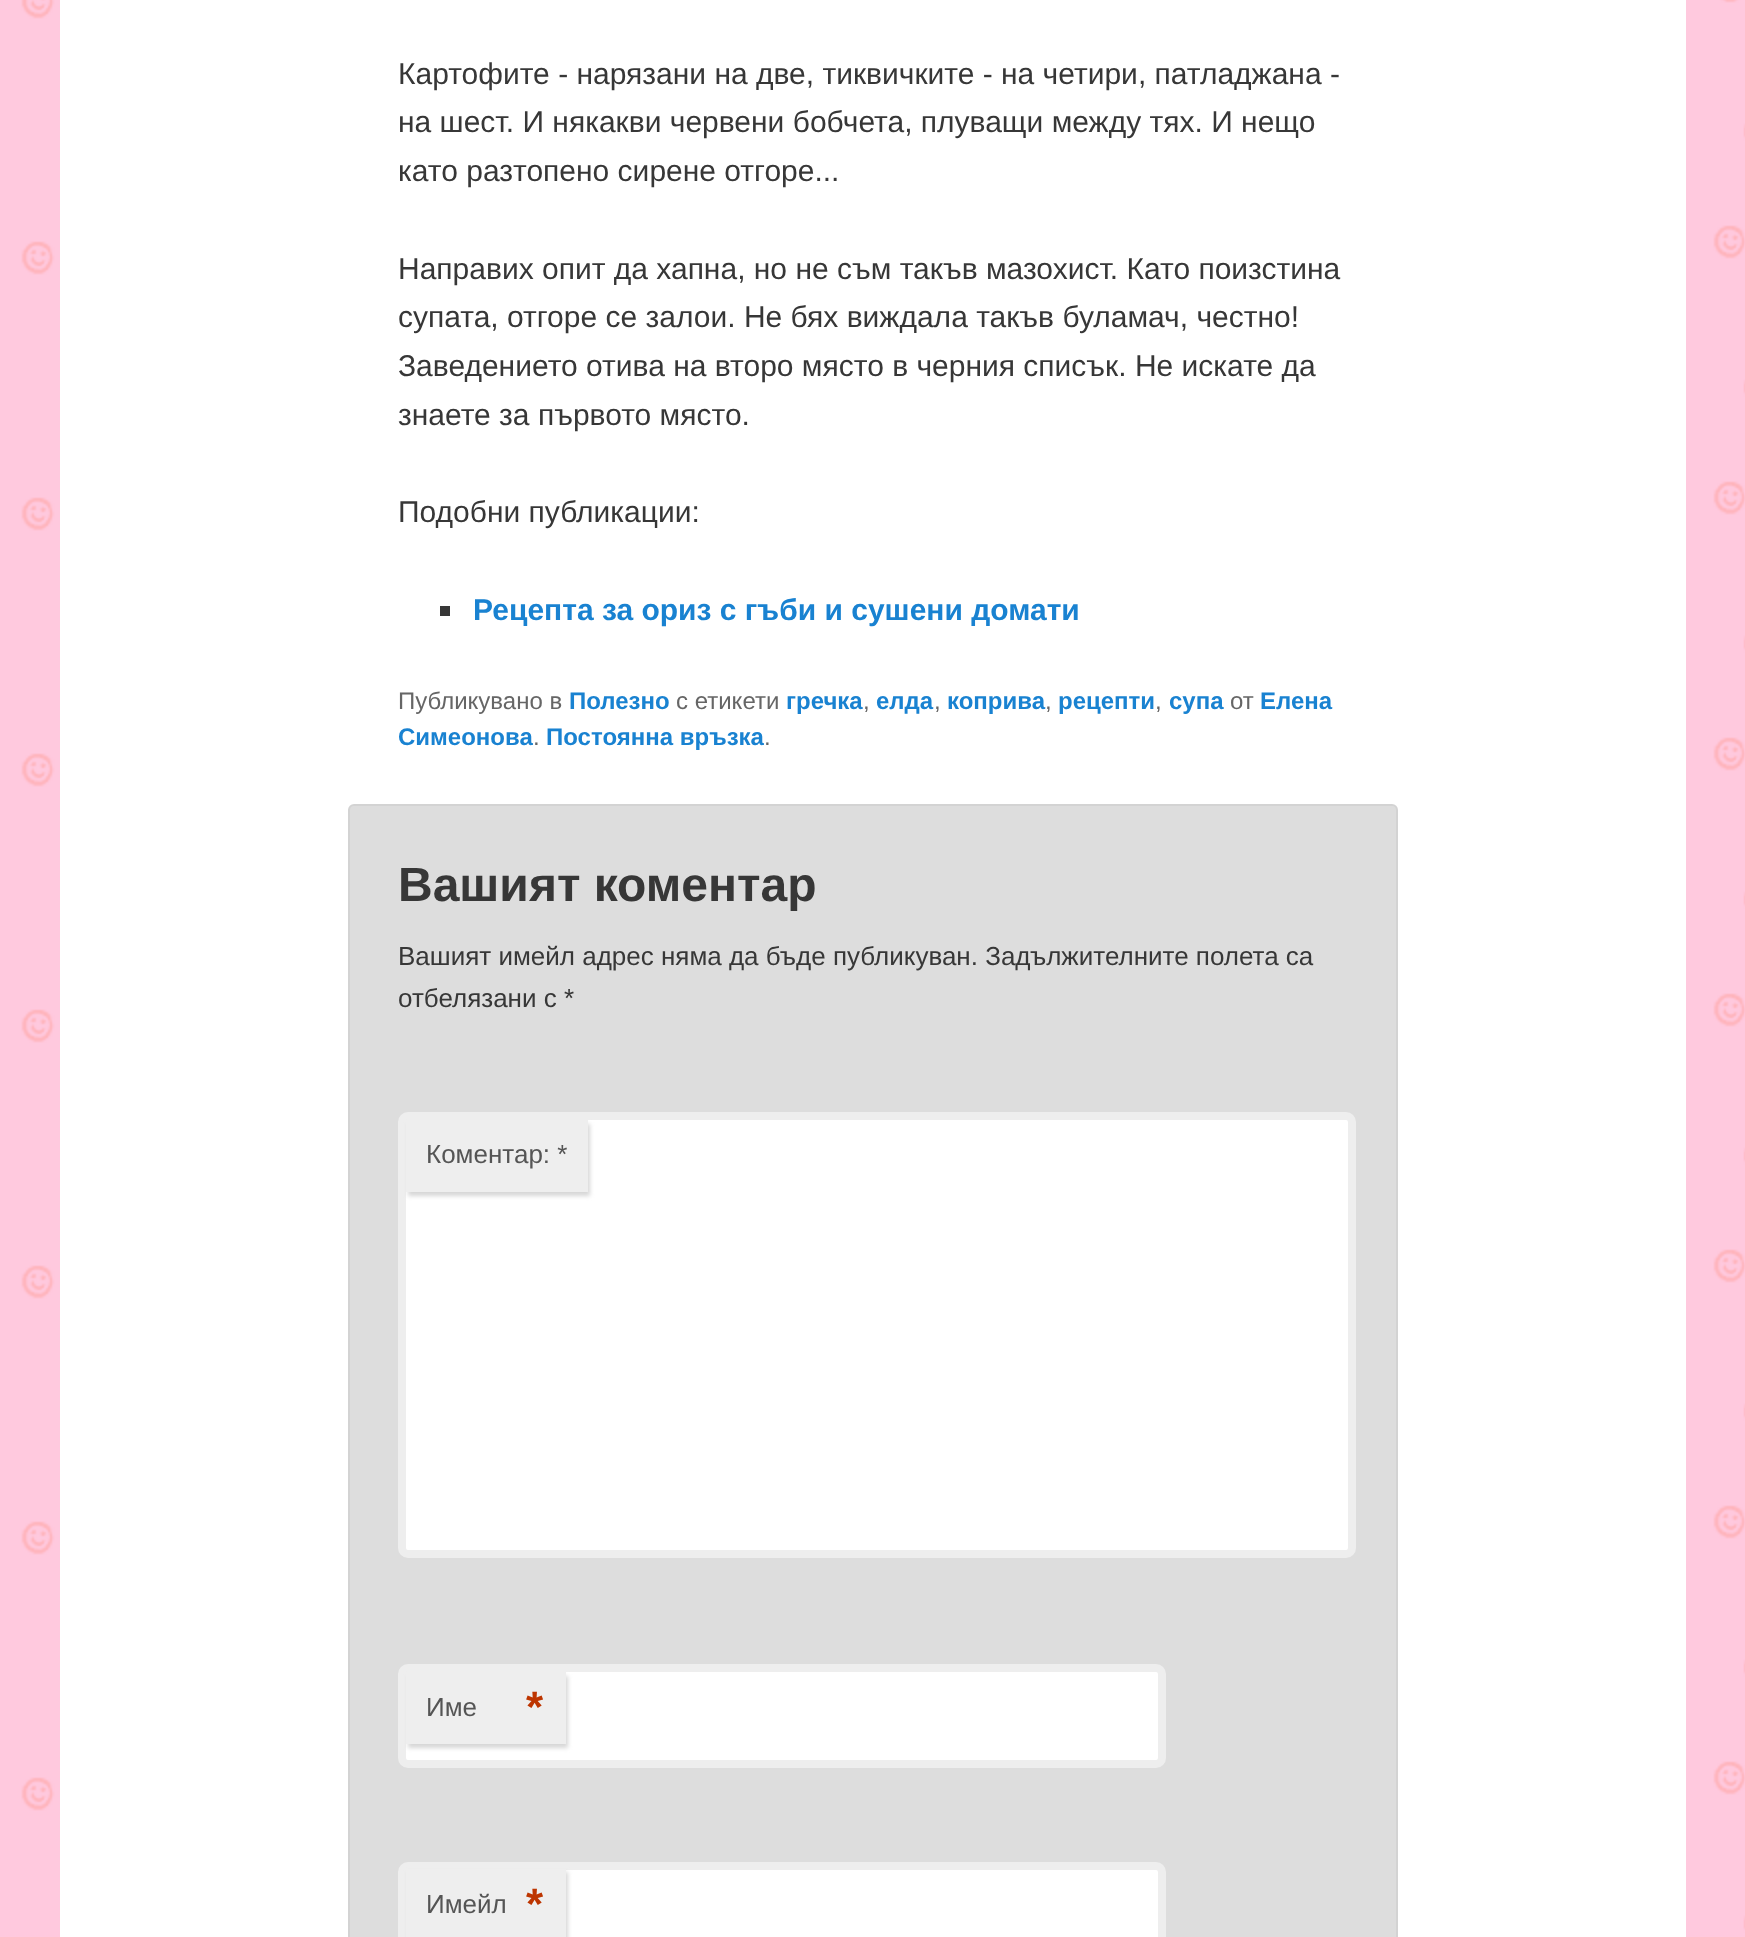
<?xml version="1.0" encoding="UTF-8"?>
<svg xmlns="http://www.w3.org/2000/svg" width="1745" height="1937">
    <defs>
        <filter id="blur1" x="-50%" y="-200%" width="200%" height="500%"><feGaussianBlur stdDeviation="2"/></filter>
    </defs>
    <rect width="100%" height="100%" fill="#FFFFFF"/>
    <image x="0" y="0" width="1745" height="1937" href="img_01.png"/>
    <rect x="60" y="0" width="1626" height="1937" fill="#FFFFFF"/>
    <text font-family="Liberation Sans" font-size="30" fill="#373737">
        <tspan x="398" y="84">Картофите - нарязани на две, тиквичките - на четири, патладжана -</tspan>
        <tspan x="398" y="132">на шест. И някакви червени бобчета, плуващи между тях. И нещо</tspan>
        <tspan x="398" y="181">като разтопено сирене отгоре...</tspan>
    </text>
    <text font-family="Liberation Sans" font-size="30" fill="#373737">
        <tspan x="398" y="279">Направих опит да хапна, но не съм такъв мазохист. Като поизстина</tspan>
        <tspan x="398" y="327">супата, отгоре се залои. Не бях виждала такъв буламач, честно!</tspan>
        <tspan x="398" y="376">Заведението отива на второ място в черния списък. Не искате да</tspan>
        <tspan x="398" y="425">знаете за първото място.</tspan>
    </text>
    <text x="398" y="522" font-family="Liberation Sans" font-size="30" fill="#373737">Подобни публикации:</text>
    <rect x="440" y="606" width="10" height="10" fill="#373737"/>
    <text x="473" y="620" font-family="Liberation Sans" font-size="30" font-weight="700" fill="#1982D1">Рецепта за ориз с гъби и сушени домати</text>
    <text x="398" y="709" font-family="Liberation Sans" font-size="24" fill="#666666">Публикувано в</text>
    <text x="569" y="709" font-family="Liberation Sans" font-size="24" font-weight="700" fill="#1982D1">Полезно</text>
    <text x="676" y="709" font-family="Liberation Sans" font-size="24" fill="#666666">с етикети</text>
    <text x="786" y="709" font-family="Liberation Sans" font-size="24" font-weight="700" fill="#1982D1">гречка</text>
    <text x="863" y="709" font-family="Liberation Sans" font-size="24" fill="#666666">,</text>
    <text x="876" y="709" font-family="Liberation Sans" font-size="24" font-weight="700" fill="#1982D1">елда</text>
    <text x="934" y="709" font-family="Liberation Sans" font-size="24" fill="#666666">,</text>
    <text x="947" y="709" font-family="Liberation Sans" font-size="24" font-weight="700" fill="#1982D1">коприва</text>
    <text x="1045" y="709" font-family="Liberation Sans" font-size="24" fill="#666666">,</text>
    <text x="1058" y="709" font-family="Liberation Sans" font-size="24" font-weight="700" fill="#1982D1">рецепти</text>
    <text x="1155" y="709" font-family="Liberation Sans" font-size="24" fill="#666666">,</text>
    <text x="1169" y="709" font-family="Liberation Sans" font-size="24" font-weight="700" fill="#1982D1">супа</text>
    <text x="1230" y="709" font-family="Liberation Sans" font-size="24" fill="#666666">от</text>
    <text x="1260" y="709" font-family="Liberation Sans" font-size="24" font-weight="700" fill="#1982D1">Елена</text>
    <text x="398" y="745" font-family="Liberation Sans" font-size="24" font-weight="700" fill="#1982D1">Симеонова</text>
    <text x="533" y="745" font-family="Liberation Sans" font-size="24" fill="#666666">.</text>
    <text x="546" y="745" font-family="Liberation Sans" font-size="24" font-weight="700" fill="#1982D1">Постоянна връзка</text>
    <text x="764" y="745" font-family="Liberation Sans" font-size="24" fill="#666666">.</text>
    <rect x="349" y="805" width="1048" height="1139" rx="5" fill="#DDDDDD" stroke="#D3D3D3" stroke-width="2"/>
    <text x="398" y="901" font-family="Liberation Sans" font-size="48" font-weight="700" fill="#373737">Вашият коментар</text>
    <text font-family="Liberation Sans" font-size="26" fill="#373737">
        <tspan x="398" y="965">Вашият имейл адрес няма да бъде публикуван. Задължителните полета са</tspan>
        <tspan x="398" y="1007">отбелязани с *</tspan>
    </text>
    <rect x="402" y="1116" width="950" height="438" rx="6" fill="#FFFFFF" stroke="#EEEEEE" stroke-width="8"/>
    <rect x="408" y="1124" width="182" height="72" fill="#CCCCCC" fill-opacity="0.8" filter="url(#blur1)"/>
    <rect x="406" y="1120" width="182" height="72" fill="#EEEEEE"/>
    <text x="426" y="1163" font-family="Liberation Sans" font-size="26" fill="#555555">Коментар: *</text>
    <rect x="402" y="1668" width="760" height="96" rx="6" fill="#FFFFFF" stroke="#EEEEEE" stroke-width="8"/>
    <rect x="408" y="1676" width="160" height="72" fill="#CCCCCC" fill-opacity="0.8" filter="url(#blur1)"/>
    <rect x="406" y="1672" width="160" height="72" fill="#EEEEEE"/>
    <text x="426" y="1716" font-family="Liberation Sans" font-size="26" fill="#555555">Име</text>
    <text x="526" y="1722" font-family="Liberation Sans" font-size="44" font-weight="700" fill="#BD3500">*</text>
    <rect x="402" y="1866" width="760" height="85" rx="6" fill="#FFFFFF" stroke="#EEEEEE" stroke-width="8"/>
    <rect x="408" y="1872" width="160" height="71" fill="#CCCCCC" fill-opacity="0.8" filter="url(#blur1)"/>
    <rect x="406" y="1869" width="160" height="68" fill="#EEEEEE"/>
    <text x="426" y="1913" font-family="Liberation Sans" font-size="26" fill="#555555">Имейл</text>
    <text x="526" y="1919" font-family="Liberation Sans" font-size="44" font-weight="700" fill="#BD3500">*</text>
</svg>
